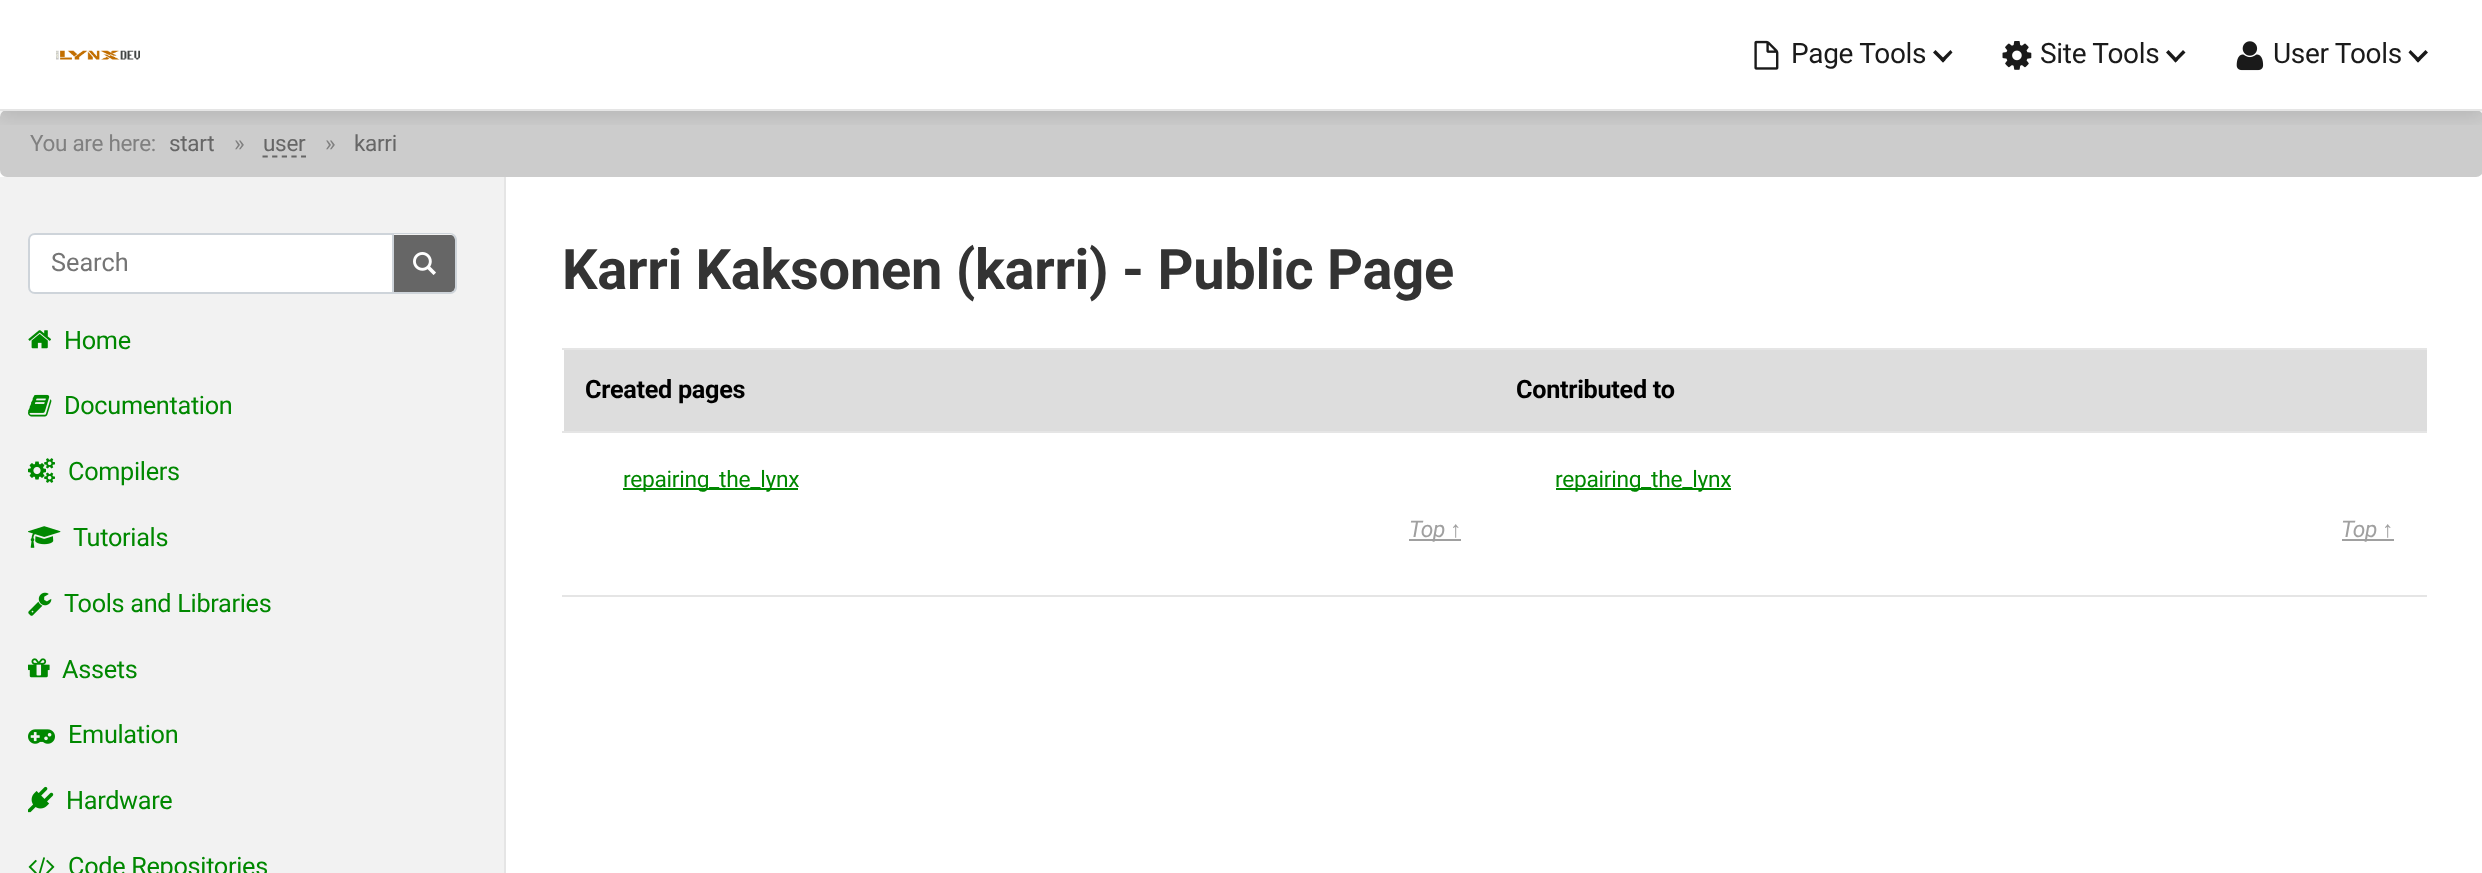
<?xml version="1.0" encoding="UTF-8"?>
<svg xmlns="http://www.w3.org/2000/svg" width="2482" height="873">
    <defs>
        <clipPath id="clip1"><rect x="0" y="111" width="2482" height="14"/></clipPath>
        <filter id="blur1" x="-50%" y="-200%" width="200%" height="500%"><feGaussianBlur stdDeviation="9"/></filter>
    </defs>
    <rect width="100%" height="100%" fill="#FFFFFF"/>
    <rect x="1" y="111" width="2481" height="65" rx="6" fill="#CCCCCC" stroke="#CCCCCC" stroke-width="2"/>
    <g clip-path="url(#clip1)">
        <rect x="0" y="7" width="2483" height="110" fill="#000000" fill-opacity="0.1" filter="url(#blur1)"/>
    </g>
    <rect x="0" y="109" width="2482" height="2" fill="#E5E5E5"/>
    <image x="56" y="50" width="84" height="10" href="img_01.png"/>
    <image x="1754" y="40" width="25" height="30" href="img_02.png"/>
    <text x="1791" y="63" font-family="Roboto" font-size="28" letter-spacing="-0.3" fill="#1A1A1A">Page Tools</text>
    <path d="M 1940.5 60 L 1950.5 50 L 1952.5 52.5 L 1943 62.5 Z" fill="#1A1A1A"/>
    <path d="M 1933 52.5 L 1935.5 50 L 1945.5 60 L 1943 62.5 Z" fill="#1A1A1A"/>
    <image x="2002" y="41" width="30" height="29" href="img_03.png"/>
    <text x="2040" y="63" font-family="Roboto" font-size="28" letter-spacing="-0.3" fill="#1A1A1A">Site Tools</text>
    <path d="M 2173.5 60 L 2183 50 L 2185.5 52.5 L 2175.5 62.5 Z" fill="#1A1A1A"/>
    <path d="M 2166 52.5 L 2168.5 50 L 2178 60 L 2175.5 62.5 Z" fill="#1A1A1A"/>
    <image x="2236" y="41" width="28" height="30" href="img_04.png"/>
    <text x="2273" y="63" font-family="Roboto" font-size="28" letter-spacing="-0.3" fill="#1A1A1A">User Tools</text>
    <path d="M 2415.5 60 L 2425.5 50 L 2428 52.5 L 2418 62.5 Z" fill="#1A1A1A"/>
    <path d="M 2408.5 52.5 L 2410.5 50 L 2420.5 60 L 2418 62.5 Z" fill="#1A1A1A"/>
    <text x="30" y="151" font-family="Roboto" font-size="22.5" letter-spacing="-0.3" fill="#808080">You are here:</text>
    <text x="169" y="151" font-family="Roboto" font-size="22.5" letter-spacing="-0.3" fill="#666666">start</text>
    <text x="234" y="151" font-family="Roboto" font-size="22.5" letter-spacing="-0.3" fill="#808080">»</text>
    <text x="263" y="151" font-family="Roboto" font-size="22.5" letter-spacing="-0.3" fill="#666666">user</text>
    <path d="M 262.5 156.5 H 306" fill="none" stroke="#666666" stroke-width="1.8" stroke-dasharray="5.25 4.38"/>
    <text x="325" y="151" font-family="Roboto" font-size="22.5" letter-spacing="-0.3" fill="#808080">»</text>
    <text x="354" y="151" font-family="Roboto" font-size="22.5" letter-spacing="-0.3" fill="#666666">karri</text>
    <rect x="0" y="177" width="504" height="696" fill="#F2F2F2"/>
    <rect x="504" y="177" width="2" height="696" fill="#E5E5E5"/>
    <path d="M 35 234 H 393 V 293 H 35 C 31.5 293 29 290.5 29 287 V 240 C 29 236.5 31.5 234 35 234 Z" fill="#FFFFFF" stroke="#CED4DA" stroke-width="2"/>
    <text x="51" y="271" font-family="Roboto" font-size="25.25" fill="#757575">Search</text>
    <path d="M 394 235 H 450 C 453 235 455 237 455 240 V 287 C 455 290 453 292 450 292 H 394 Z" fill="#666666"/>
    <path d="M 394 233 H 450 C 454 233 457 236 457 240 V 287 C 457 291 454 294 450 294 H 394 Z M 394 234 H 450 C 453 234 455 237 455 240 V 287 C 455 290 453 292 450 292 H 394 Z" fill="#CED4DA" fill-rule="evenodd"/>
    <image x="413" y="252" width="23" height="23" href="img_05.png"/>
    <image x="28" y="330" width="23" height="19" href="img_06.png"/>
    <text x="64" y="349" font-family="Roboto" font-size="25.25" letter-spacing="-0.3" fill="#008800">Home</text>
    <image x="28" y="394" width="24" height="23" href="img_07.png"/>
    <text x="64" y="414" font-family="Roboto" font-size="25.25" letter-spacing="-0.3" fill="#008800">Documentation</text>
    <image x="28" y="458" width="27" height="25" href="img_08.png"/>
    <text x="68" y="480" font-family="Roboto" font-size="25.25" letter-spacing="-0.3" fill="#008800">Compilers</text>
    <image x="28" y="526" width="33" height="22" href="img_09.png"/>
    <text x="73" y="546" font-family="Roboto" font-size="25.25" letter-spacing="-0.3" fill="#008800">Tutorials</text>
    <image x="28" y="592" width="24" height="24" href="img_10.png"/>
    <text x="64" y="612" font-family="Roboto" font-size="25.25" letter-spacing="-0.3" fill="#008800">Tools and Libraries</text>
    <image x="28" y="658" width="22" height="20" href="img_11.png"/>
    <text x="62" y="678" font-family="Roboto" font-size="25.25" letter-spacing="-0.3" fill="#008800">Assets</text>
    <image x="28" y="729" width="27" height="15" href="img_12.png"/>
    <text x="68" y="743" font-family="Roboto" font-size="25.25" letter-spacing="-0.3" fill="#008800">Emulation</text>
    <image x="28" y="786" width="26" height="27" href="img_13.png"/>
    <text x="66" y="809" font-family="Roboto" font-size="25.25" letter-spacing="-0.3" fill="#008800">Hardware</text>
    <image x="28" y="857" width="27" height="16" href="img_14.png"/>
    <text x="68" y="875" font-family="Roboto" font-size="25.25" letter-spacing="-0.3" fill="#008800">Code Repositories</text>
    <text x="562" y="289" font-family="Roboto" font-size="56" font-weight="700" letter-spacing="-0.3" fill="#333333">Karri Kaksonen (karri) - Public Page</text>
    <rect x="562" y="595" width="1865" height="2" fill="#E5E5E5"/>
    <rect x="564" y="350" width="1863" height="81" fill="#DDDDDD"/>
    <rect x="562" y="348" width="1865" height="2" fill="#E5E5E5"/>
    <text x="585" y="398" font-family="Roboto" font-size="25.25" font-weight="700" letter-spacing="-0.3" fill="#000000">Created pages</text>
    <text x="1516" y="398" font-family="Roboto" font-size="25.25" font-weight="700" letter-spacing="-0.3" fill="#000000">Contributed to</text>
    <rect x="562" y="431" width="1865" height="2" fill="#E5E5E5"/>
    <rect x="623" y="488" width="175" height="2" fill="#008800"/>
    <text x="623" y="487" font-family="Roboto" font-size="22.75" letter-spacing="-0.3" fill="#008800">repairing_the_lynx</text>
    <rect x="1409" y="539" width="52" height="2" fill="#A0A0A0"/>
    <text x="1409" y="537" font-family="Roboto" font-size="22.75" font-style="italic" letter-spacing="-0.3" fill="#A0A0A0">Top</text>
    <text x="1450" y="537" font-family="Liberation Sans" font-size="22.75" font-style="italic" letter-spacing="-0.3" fill="#A0A0A0">↑</text>
    <rect x="1556" y="488" width="175" height="2" fill="#008800"/>
    <text x="1555" y="487" font-family="Roboto" font-size="22.75" letter-spacing="-0.3" fill="#008800">repairing_the_lynx</text>
    <rect x="2342" y="539" width="52" height="2" fill="#A0A0A0"/>
    <text x="2341" y="537" font-family="Roboto" font-size="22.75" font-style="italic" letter-spacing="-0.3" fill="#A0A0A0">Top</text>
    <text x="2382" y="537" font-family="Liberation Sans" font-size="22.75" font-style="italic" letter-spacing="-0.3" fill="#A0A0A0">↑</text>
</svg>
